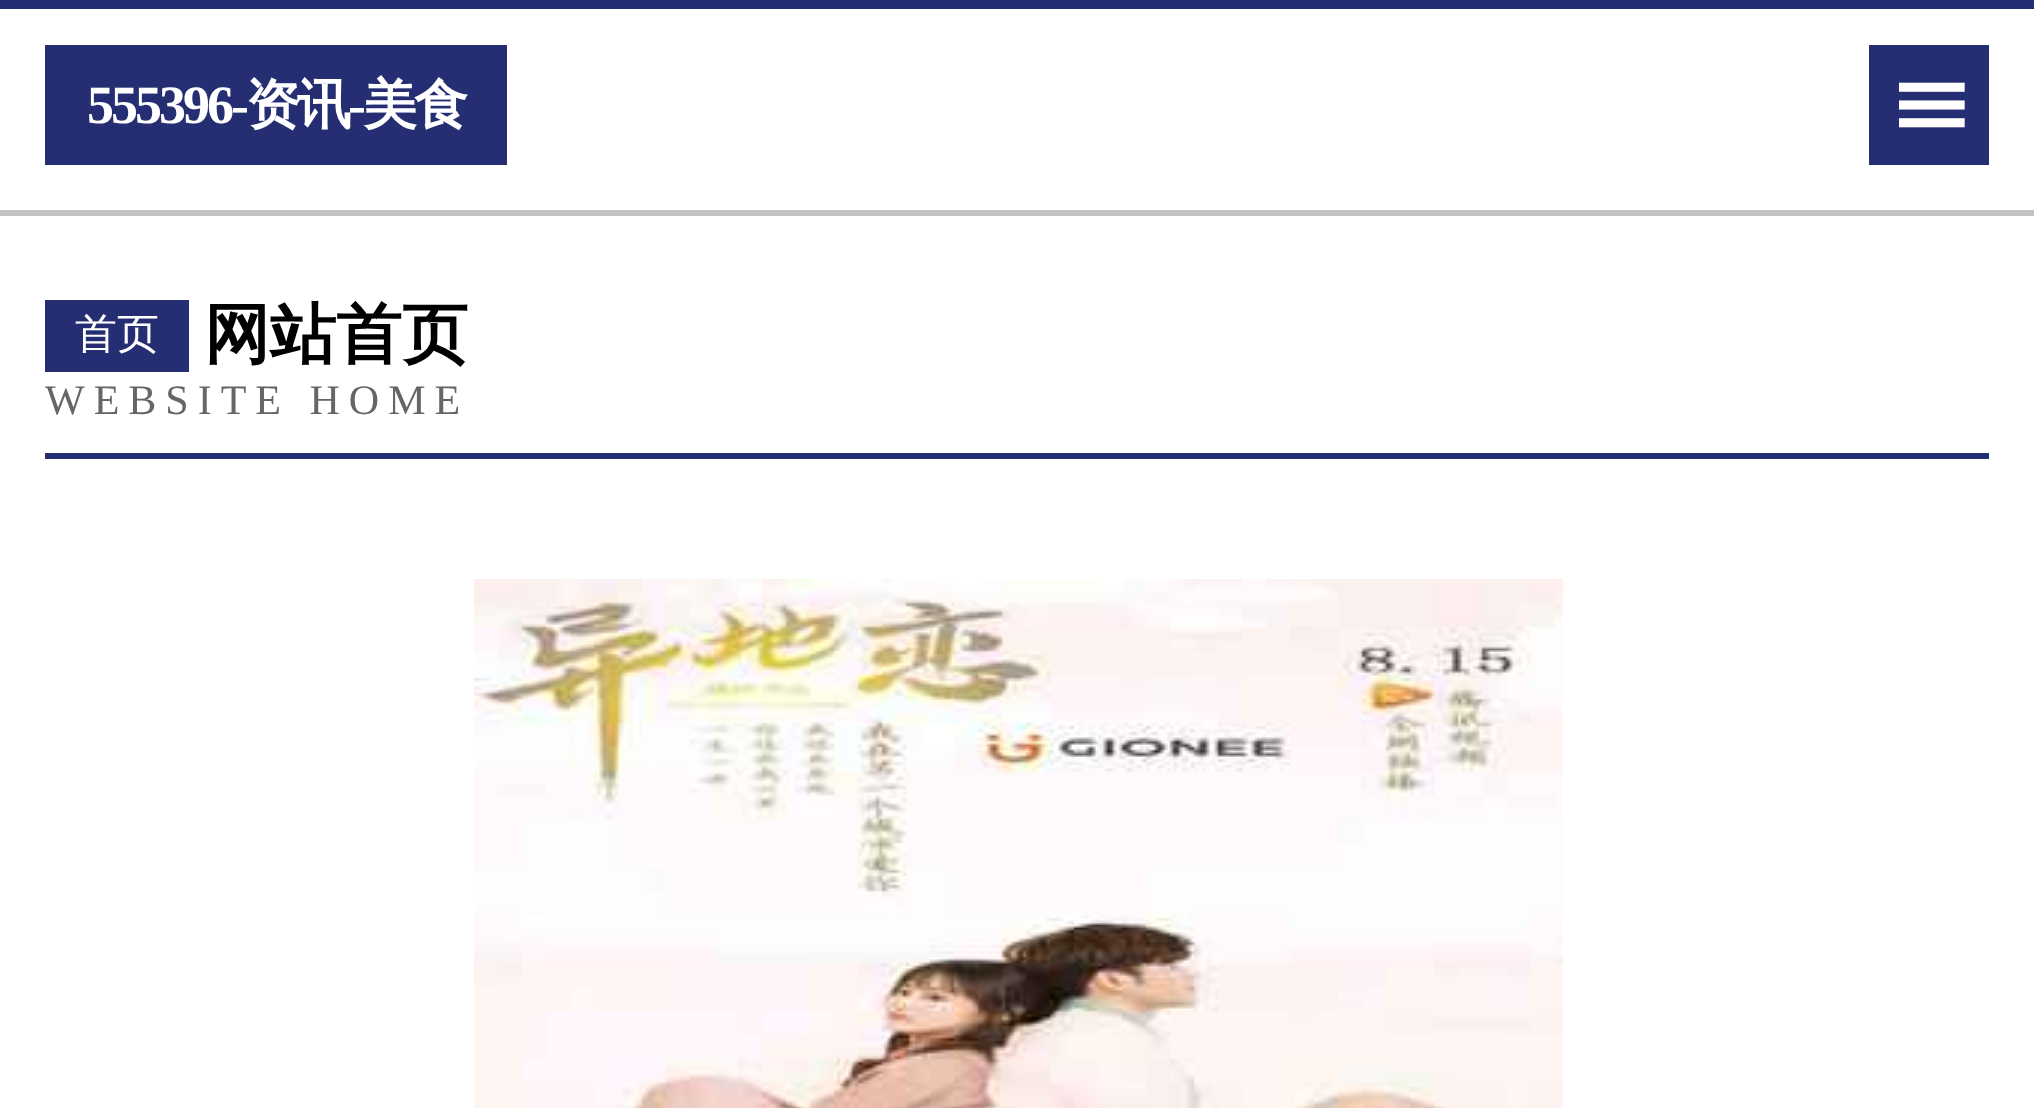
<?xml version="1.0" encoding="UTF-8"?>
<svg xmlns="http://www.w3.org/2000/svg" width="2034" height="1108">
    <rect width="100%" height="100%" fill="#FFFFFF"/>
    <rect x="0" y="0" width="2034" height="9" fill="#252E72"/>
    <rect x="45" y="45" width="462" height="120" fill="#252E72"/>
    <text x="87" y="123" font-family="Liberation Serif" font-size="54" font-weight="700" letter-spacing="-3" fill="#FFFFFF">555396-</text>
    <text x="246" y="123" font-family="WenQuanYi Zen Hei" font-size="54" font-weight="700" letter-spacing="-3" fill="#FFFFFF">资讯</text>
    <text x="348" y="123" font-family="Liberation Serif" font-size="54" font-weight="700" letter-spacing="-3" fill="#FFFFFF">-</text>
    <text x="363" y="123" font-family="WenQuanYi Zen Hei" font-size="54" font-weight="700" letter-spacing="-3" fill="#FFFFFF">美食</text>
    <rect x="1869" y="45" width="120" height="120" fill="#252E72"/>
    <text x="1899" y="74" transform="rotate(90 1899 74)" font-family="DejaVu Sans" font-size="90" fill="#FFFFFF">Ⅲ</text>
    <rect x="0" y="210" width="2034" height="6" fill="#C2C2C2"/>
    <rect x="45" y="453" width="1944" height="6" fill="#252E72"/>
    <rect x="45" y="300" width="144" height="72" fill="#252E72"/>
    <text x="75" y="348" font-family="WenQuanYi Zen Hei" font-size="42" font-weight="500" fill="#FFFFFF">首页</text>
    <text x="204" y="357" font-family="WenQuanYi Zen Hei" font-size="66" font-weight="700" fill="#000000">网站首页</text>
    <text x="45" y="414" font-family="Liberation Serif" font-size="42" letter-spacing="9" fill="#666666">WEBSITE HOME</text>
    <image x="474" y="579" width="1089" height="529" href="img_01.png"/>
</svg>
